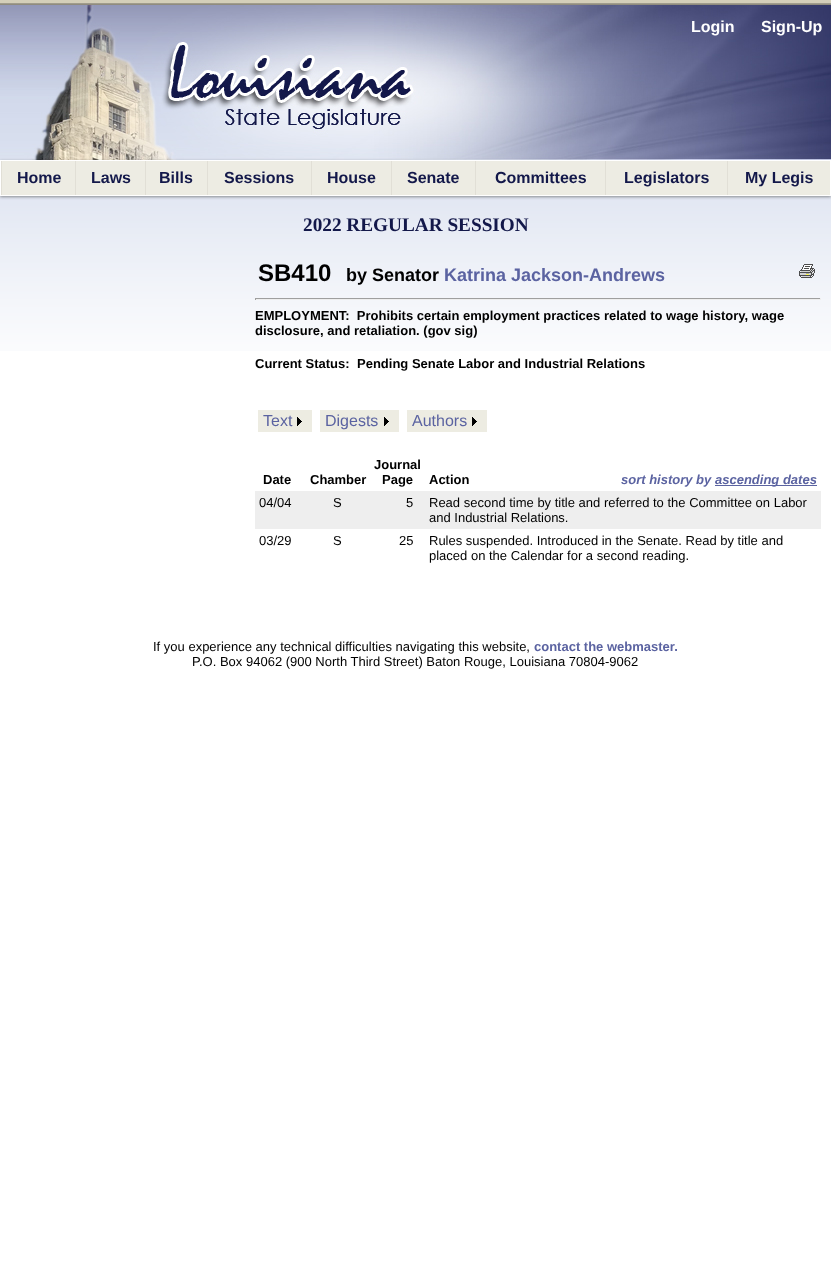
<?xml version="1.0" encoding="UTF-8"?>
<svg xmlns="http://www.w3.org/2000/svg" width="831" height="1278">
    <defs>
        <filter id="blur1" x="-50%" y="-200%" width="200%" height="500%"><feGaussianBlur stdDeviation="1.5"/></filter>
    </defs>
    <rect width="100%" height="100%" fill="#FFFFFF"/>
    <image x="0" y="0" width="831" height="351" href="img_01.png"/>
    <image x="0" y="5" width="831" height="155" href="img_02.png"/>
    <text x="691" y="32" font-family="Liberation Sans" font-size="16" font-weight="700" fill="#FFFFFF">Login</text>
    <text x="761" y="32" font-family="Liberation Sans" font-size="16" font-weight="700" fill="#FFFFFF">Sign-Up</text>
    <rect x="0" y="161" width="831" height="36" fill="#000000" fill-opacity="0.4" filter="url(#blur1)"/>
    <rect x="2" y="161" width="828" height="34" fill="#EDECE3"/>
    <rect x="0.5" y="160.5" width="830" height="35" fill="none" stroke="#FFFFFF"/>
    <rect x="1" y="161" width="1" height="34" fill="#E1DFD6"/>
    <text x="17" y="183" font-family="Liberation Sans" font-size="16" font-weight="700" fill="#13184A">Home</text>
    <rect x="75" y="161" width="1" height="34" fill="#E1DFD6"/>
    <text x="91" y="183" font-family="Liberation Sans" font-size="16" font-weight="700" fill="#13184A">Laws</text>
    <rect x="145" y="161" width="1" height="34" fill="#E1DFD6"/>
    <text x="159" y="183" font-family="Liberation Sans" font-size="16" font-weight="700" fill="#13184A">Bills</text>
    <rect x="207" y="161" width="1" height="34" fill="#E1DFD6"/>
    <text x="224" y="183" font-family="Liberation Sans" font-size="16" font-weight="700" fill="#13184A">Sessions</text>
    <rect x="311" y="161" width="1" height="34" fill="#E1DFD6"/>
    <text x="327" y="183" font-family="Liberation Sans" font-size="16" font-weight="700" fill="#13184A">House</text>
    <rect x="391" y="161" width="1" height="34" fill="#E1DFD6"/>
    <text x="407" y="183" font-family="Liberation Sans" font-size="16" font-weight="700" fill="#13184A">Senate</text>
    <rect x="475" y="161" width="1" height="34" fill="#E1DFD6"/>
    <text x="495" y="183" font-family="Liberation Sans" font-size="16" font-weight="700" fill="#13184A">Committees</text>
    <rect x="605" y="161" width="1" height="34" fill="#E1DFD6"/>
    <text x="624" y="183" font-family="Liberation Sans" font-size="16" font-weight="700" fill="#13184A">Legislators</text>
    <rect x="727" y="161" width="1" height="34" fill="#E1DFD6"/>
    <text x="745" y="183" font-family="Liberation Sans" font-size="16" font-weight="700" fill="#13184A">My Legis</text>
    <text x="303" y="231" font-family="Liberation Serif" font-size="19.25" font-weight="700" fill="#13184A">2022 REGULAR SESSION</text>
    <text x="258" y="281" font-family="Liberation Sans" font-size="24" font-weight="700" fill="#000000">SB410</text>
    <text x="346" y="281" font-family="Liberation Sans" font-size="18" font-weight="700" fill="#000000">by Senator</text>
    <text x="444" y="281" font-family="Liberation Sans" font-size="18" font-weight="700" fill="#5B63A1">Katrina Jackson-Andrews</text>
    <image x="799" y="264" width="16" height="14" href="img_03.png"/>
    <rect x="255" y="298" width="566" height="1" fill="#9F9F9F"/>
    <rect x="820" y="298" width="1" height="2" fill="#EEEEEE"/>
    <rect x="255" y="299" width="566" height="1" fill="#EEEEEE"/>
    <rect x="255" y="298" width="1" height="2" fill="#9F9F9F"/>
    <text font-family="Liberation Sans" font-size="13" font-weight="700" fill="#000000" xml:space="preserve"><tspan x="255" y="320">EMPLOYMENT:  Prohibits certain employment practices related to wage history, wage</tspan><tspan x="255" y="335">disclosure, and retaliation. (gov sig)</tspan></text>
    <text x="255" y="368" font-family="Liberation Sans" font-size="13" font-weight="700" fill="#000000">Current Status:</text>
    <text x="357" y="368" font-family="Liberation Sans" font-size="13" font-weight="700" fill="#000000">Pending Senate Labor and Industrial Relations</text>
    <rect x="258" y="410" width="54" height="22" fill="#EDECE2"/>
    <text x="263" y="426" font-family="Liberation Sans" font-size="16" fill="#5B63A1">Text</text>
    <image x="297" y="417" width="5" height="9" href="img_04.png"/>
    <rect x="320" y="410" width="79" height="22" fill="#EDECE2"/>
    <text x="325" y="426" font-family="Liberation Sans" font-size="16" fill="#5B63A1">Digests</text>
    <image x="384" y="417" width="5" height="9" href="img_04.png"/>
    <rect x="407" y="410" width="80" height="22" fill="#EDECE2"/>
    <text x="412" y="426" font-family="Liberation Sans" font-size="16" fill="#5B63A1">Authors</text>
    <image x="472" y="417" width="5" height="9" href="img_04.png"/>
    <text x="263" y="484" font-family="Liberation Sans" font-size="13" font-weight="700" fill="#000000">Date</text>
    <text x="310" y="484" font-family="Liberation Sans" font-size="13" font-weight="700" fill="#000000">Chamber</text>
    <text x="374" y="469" font-family="Liberation Sans" font-size="13" font-weight="700" fill="#000000">Journal</text>
    <text x="382" y="484" font-family="Liberation Sans" font-size="13" font-weight="700" fill="#000000">Page</text>
    <text x="429" y="484" font-family="Liberation Sans" font-size="13" font-weight="700" fill="#000000">Action</text>
    <text x="621" y="484" font-family="Liberation Sans" font-size="13" font-weight="700" font-style="italic" fill="#5B63A1">sort history by</text>
    <rect x="715" y="485" width="102" height="1" fill="#5B63A1"/>
    <text x="715" y="484" font-family="Liberation Sans" font-size="13" font-weight="700" font-style="italic" fill="#5B63A1">ascending dates</text>
    <rect x="255" y="491" width="566" height="38" fill="#EEEEEE"/>
    <text x="259" y="507" font-family="Liberation Sans" font-size="13" fill="#000000">04/04</text>
    <text x="333" y="507" font-family="Liberation Sans" font-size="13" fill="#000000">S</text>
    <text x="406" y="507" font-family="Liberation Sans" font-size="13" fill="#000000">5</text>
    <text font-family="Liberation Sans" font-size="13" fill="#000000">
        <tspan x="429" y="507">Read second time by title and referred to the Committee on Labor</tspan>
        <tspan x="429" y="522">and Industrial Relations.</tspan>
    </text>
    <text x="259" y="545" font-family="Liberation Sans" font-size="13" fill="#000000">03/29</text>
    <text x="333" y="545" font-family="Liberation Sans" font-size="13" fill="#000000">S</text>
    <text x="399" y="545" font-family="Liberation Sans" font-size="13" fill="#000000">25</text>
    <text font-family="Liberation Sans" font-size="13" fill="#000000">
        <tspan x="429" y="545">Rules suspended. Introduced in the Senate. Read by title and</tspan>
        <tspan x="429" y="560">placed on the Calendar for a second reading.</tspan>
    </text>
    <text x="153" y="651" font-family="Liberation Sans" font-size="13" fill="#000000">If you experience any technical difficulties navigating this website,</text>
    <text x="534" y="651" font-family="Liberation Sans" font-size="13" font-weight="700" fill="#5B63A1">contact the webmaster.</text>
    <text x="192" y="666" font-family="Liberation Sans" font-size="13" fill="#000000">P.O. Box 94062 (900 North Third Street) Baton Rouge, Louisiana 70804-9062</text>
</svg>
